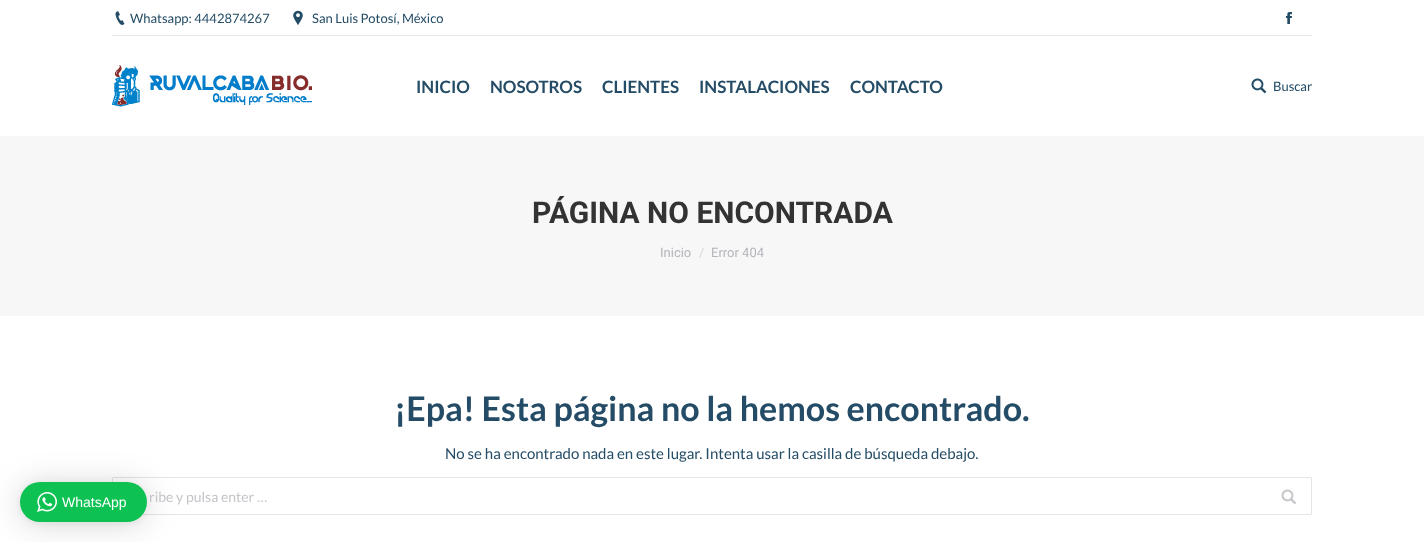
<?xml version="1.0" encoding="UTF-8"?>
<svg xmlns="http://www.w3.org/2000/svg" width="1424" height="542">
    <defs>
        <filter id="blur1" x="-50%" y="-200%" width="200%" height="500%"><feGaussianBlur stdDeviation="16"/></filter>
        <filter id="blur2" x="-50%" y="-200%" width="200%" height="500%"><feGaussianBlur stdDeviation="3"/></filter>
    </defs>
    <rect width="100%" height="100%" fill="#FFFFFF"/>
    <rect x="112.5" y="477.5" width="1199" height="37" rx="0.5" fill="none" stroke="#E5E5E5"/>
    <rect x="20" y="484" width="127" height="40" rx="20" fill="#000000" fill-opacity="0.16" filter="url(#blur1)"/>
    <rect x="20" y="483" width="127" height="40" rx="20" fill="#000000" fill-opacity="0.06" filter="url(#blur2)"/>
    <rect x="20" y="482" width="127" height="40" rx="20" fill="#0DC152"/>
    <image x="37" y="492" width="20" height="20" href="img_01.png"/>
    <text x="62" y="507" font-family="Liberation Sans" font-size="14" fill="#FFFFFF">WhatsApp</text>
    <image x="115" y="11" width="10" height="14" href="img_02.png"/>
    <text x="130" y="23" font-family="Lato" font-size="13" fill="#244C66">Whatsapp: 4442874267</text>
    <image x="293" y="10" width="10" height="15" href="img_03.png"/>
    <text x="312" y="23" font-family="Lato" font-size="13" fill="#244C66">San Luis Potosí, México</text>
    <image x="1286" y="12" width="6" height="12" href="img_04.png"/>
    <rect x="112" y="35" width="1200" height="1" fill="#E7E7E7"/>
    <image x="112" y="65" width="200" height="42" href="img_05.png"/>
    <text x="416" y="93" font-family="Lato" font-size="17" font-weight="700" fill="#244C66">INICIO</text>
    <text x="490" y="93" font-family="Lato" font-size="17" font-weight="700" fill="#244C66">NOSOTROS</text>
    <text x="602" y="93" font-family="Lato" font-size="17" font-weight="700" fill="#244C66">CLIENTES</text>
    <text x="699" y="93" font-family="Lato" font-size="17" font-weight="700" fill="#244C66">INSTALACIONES</text>
    <text x="850" y="93" font-family="Lato" font-size="17" font-weight="700" fill="#244C66">CONTACTO</text>
    <image x="1251" y="78" width="16" height="16" href="img_06.png"/>
    <text x="1273" y="91" font-family="Lato" font-size="13" fill="#244C66">Buscar</text>
    <rect x="0" y="136" width="1424" height="180" fill="#F7F7F7"/>
    <text x="532" y="223" font-family="Roboto" font-size="30" font-weight="700" fill="#333333">PÁGINA NO ENCONTRADA</text>
    <text x="660" y="257" font-family="Roboto" font-size="13" fill="#B4B5BB">Inicio</text>
    <text x="699" y="257" font-family="Roboto" font-size="13" fill="#D6D6D9">/</text>
    <text x="711" y="257" font-family="Roboto" font-size="13" fill="#B4B5BB">Error 404</text>
    <text x="394" y="421" font-family="Lato" font-size="34" font-weight="700" fill="#244C66">¡Epa! Esta página no la hemos encontrado.</text>
    <text x="445" y="459" font-family="Lato" font-size="15" fill="#244C66">No se ha encontrado nada en este lugar. Intenta usar la casilla de búsqueda debajo.</text>
    <text x="149" y="502" font-family="Lato" font-size="14" fill="#C4C5C9">ribe y pulsa enter …</text>
    <image x="1281" y="489" width="16" height="16" href="img_07.png"/>
</svg>
